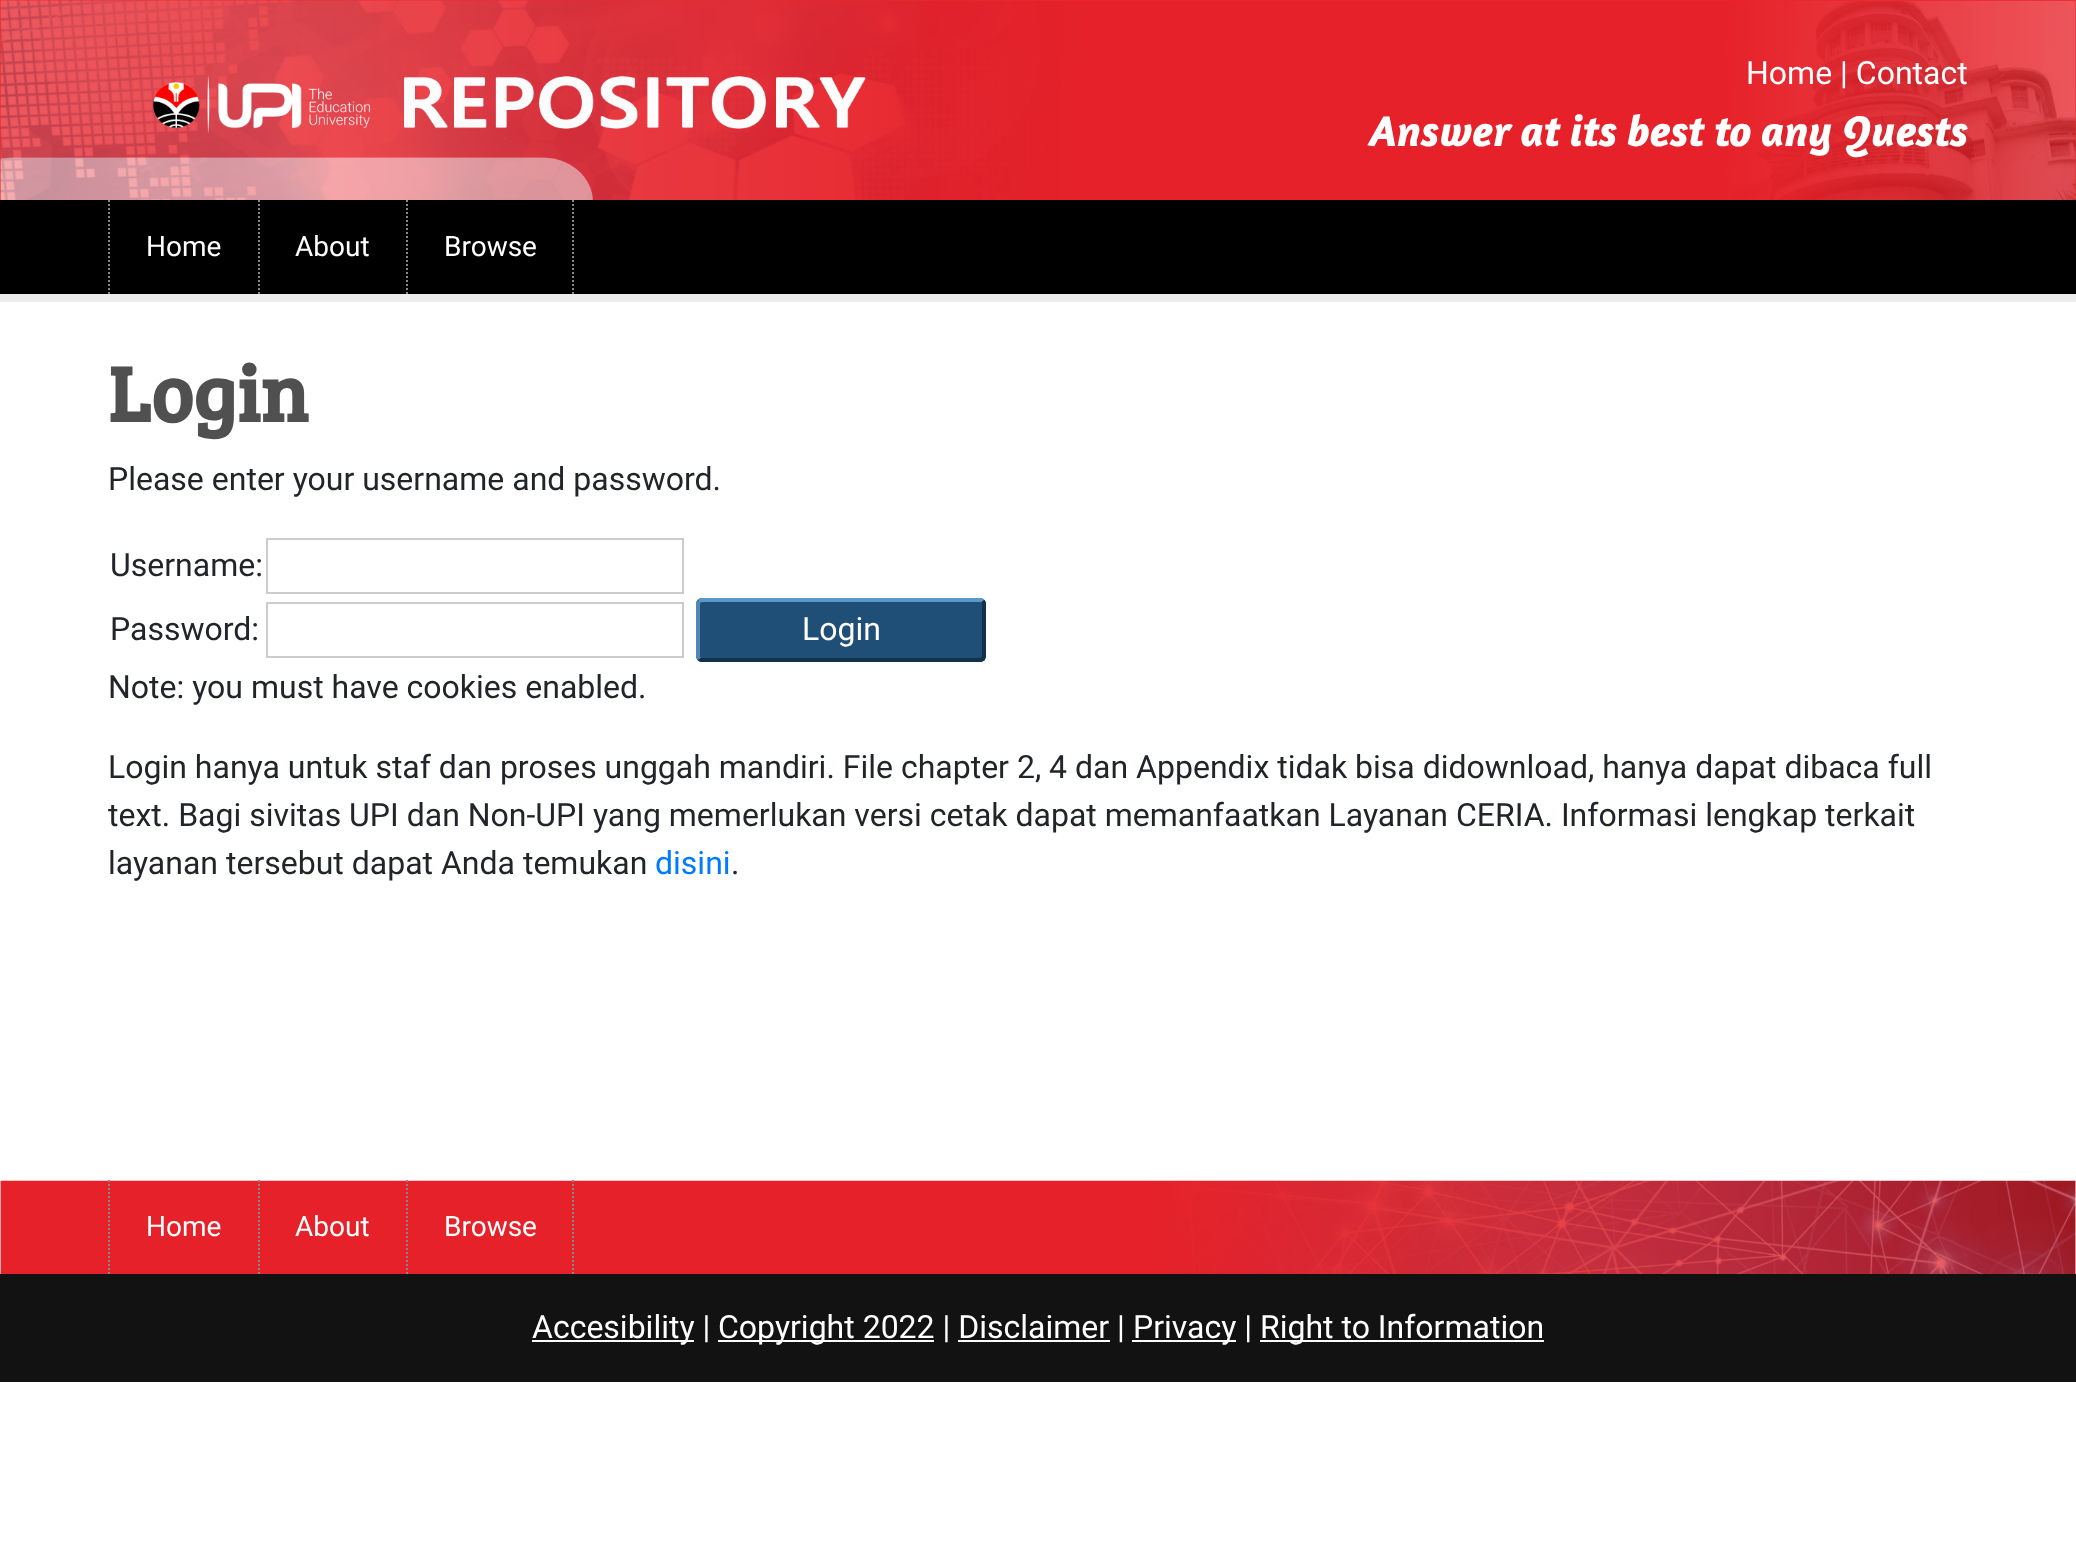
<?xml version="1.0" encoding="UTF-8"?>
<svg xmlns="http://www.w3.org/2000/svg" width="2076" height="1542">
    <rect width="100%" height="100%" fill="#FFFFFF"/>
    <rect x="0" y="0" width="2076" height="200" fill="#F32A29"/>
    <image x="0" y="0" width="2076" height="200" href="img_01.png"/>
    <image x="153" y="75" width="713" height="58" href="img_02.png"/>
    <text x="1746" y="84" font-family="Roboto" font-size="32" fill="#FFFFFF">Home | Contact</text>
    <text x="1370" y="146" font-family="Amaranth" font-size="44" font-weight="700" font-style="italic" fill="#FFFFFF">Answer at its best to any Quests</text>
    <rect x="0" y="200" width="2076" height="94" fill="#000000"/>
    <path d="M 109 200 V 294" fill="none" stroke="#888888" stroke-width="2" stroke-dasharray="2 2"/>
    <text x="146" y="256" font-family="Roboto" font-size="28" fill="#FFFFFF">Home</text>
    <path d="M 259 200 V 294" fill="none" stroke="#888888" stroke-width="2" stroke-dasharray="2 2"/>
    <text x="295" y="256" font-family="Roboto" font-size="28" fill="#FFFFFF">About</text>
    <path d="M 407 200 V 294" fill="none" stroke="#888888" stroke-width="2" stroke-dasharray="2 2"/>
    <text x="444" y="256" font-family="Roboto" font-size="28" fill="#FFFFFF">Browse</text>
    <path d="M 573 200 V 294" fill="none" stroke="#888888" stroke-width="2" stroke-dasharray="2 2"/>
    <rect x="0" y="294" width="2076" height="8" fill="#EEEEEE"/>
    <text x="108" y="422" font-family="Bree Serif" font-size="80" font-weight="700" fill="#505050">Login</text>
    <text x="108" y="490" font-family="Roboto" font-size="32" fill="#212529">Please enter your username and password.</text>
    <text x="110" y="576" font-family="Roboto" font-size="32" fill="#212529">Username:</text>
    <rect x="267" y="539" width="416" height="54" fill="none" stroke="#CCCCCC" stroke-width="2"/>
    <text x="110" y="640" font-family="Roboto" font-size="32" fill="#212529">Password:</text>
    <rect x="267" y="603" width="416" height="54" fill="none" stroke="#CCCCCC" stroke-width="2"/>
    <rect x="696" y="598" width="290" height="64" rx="6" fill="#1F4F76"/>
    <path d="M 699 601 C 700 600.5 701 600 702 600 H 980 C 981 600 982 600.5 983 601" fill="none" stroke="#5B97C7" stroke-width="4"/>
    <path d="M 983 601 C 983.5 602 984 603 984 604 V 656 C 984 657 983.5 658 983 659 C 982 659.5 981 660 980 660 H 702 C 701 660 700 659.5 699 659" fill="none" stroke="#13324A" stroke-width="4"/>
    <path d="M 699 659 C 698.5 658 698 657 698 656 V 604 C 698 603 698.5 602 699 601" fill="none" stroke="#5287B3" stroke-width="4"/>
    <text x="802" y="640" font-family="Roboto" font-size="32" fill="#FFFFFF">Login</text>
    <text x="108" y="698" font-family="Roboto" font-size="32" fill="#212529">Note: you must have cookies enabled.</text>
    <text font-family="Roboto" font-size="32" fill="#212529">
        <tspan x="108" y="778">Login hanya untuk staf dan proses unggah mandiri. File chapter 2, 4 dan Appendix tidak bisa didownload, hanya dapat dibaca full</tspan>
        <tspan x="108" y="826">text. Bagi sivitas UPI dan Non-UPI yang memerlukan versi cetak dapat memanfaatkan Layanan CERIA. Informasi lengkap terkait</tspan>
        <tspan x="108" y="874">layanan tersebut dapat Anda temukan</tspan>
    </text>
    <text x="655" y="874" font-family="Roboto" font-size="32" fill="#007BFF">disini</text>
    <text x="731" y="874" font-family="Roboto" font-size="32" fill="#212529">.</text>
    <image x="0" y="1180" width="2076" height="94" href="img_03.png"/>
    <path d="M 109 1180 V 1274" fill="none" stroke="#888888" stroke-width="2" stroke-dasharray="2 2"/>
    <text x="146" y="1236" font-family="Roboto" font-size="28" fill="#FFFFFF">Home</text>
    <path d="M 259 1180 V 1274" fill="none" stroke="#888888" stroke-width="2" stroke-dasharray="2 2"/>
    <text x="295" y="1236" font-family="Roboto" font-size="28" fill="#FFFFFF">About</text>
    <path d="M 407 1180 V 1274" fill="none" stroke="#888888" stroke-width="2" stroke-dasharray="2 2"/>
    <text x="444" y="1236" font-family="Roboto" font-size="28" fill="#FFFFFF">Browse</text>
    <path d="M 573 1180 V 1274" fill="none" stroke="#888888" stroke-width="2" stroke-dasharray="2 2"/>
    <rect x="0" y="1274" width="2076" height="108" fill="#121212"/>
    <rect x="532" y="1340" width="162" height="2" fill="#FFFFFF"/>
    <text x="532" y="1338" font-family="Roboto" font-size="32" fill="#FFFFFF">Accesibility |</text>
    <rect x="718" y="1340" width="216" height="2" fill="#FFFFFF"/>
    <text x="718" y="1338" font-family="Roboto" font-size="32" fill="#FFFFFF">Copyright 2022 | Disclaimer |</text>
    <rect x="1132" y="1340" width="104" height="2" fill="#FFFFFF"/>
    <text x="1133" y="1338" font-family="Roboto" font-size="32" fill="#FFFFFF">Privacy |</text>
    <rect x="1260" y="1340" width="284" height="2" fill="#FFFFFF"/>
    <text x="1260" y="1338" font-family="Roboto" font-size="32" fill="#FFFFFF">Right to Information</text>
    <rect x="958" y="1340" width="152" height="2" fill="#FFFFFF"/>
</svg>
